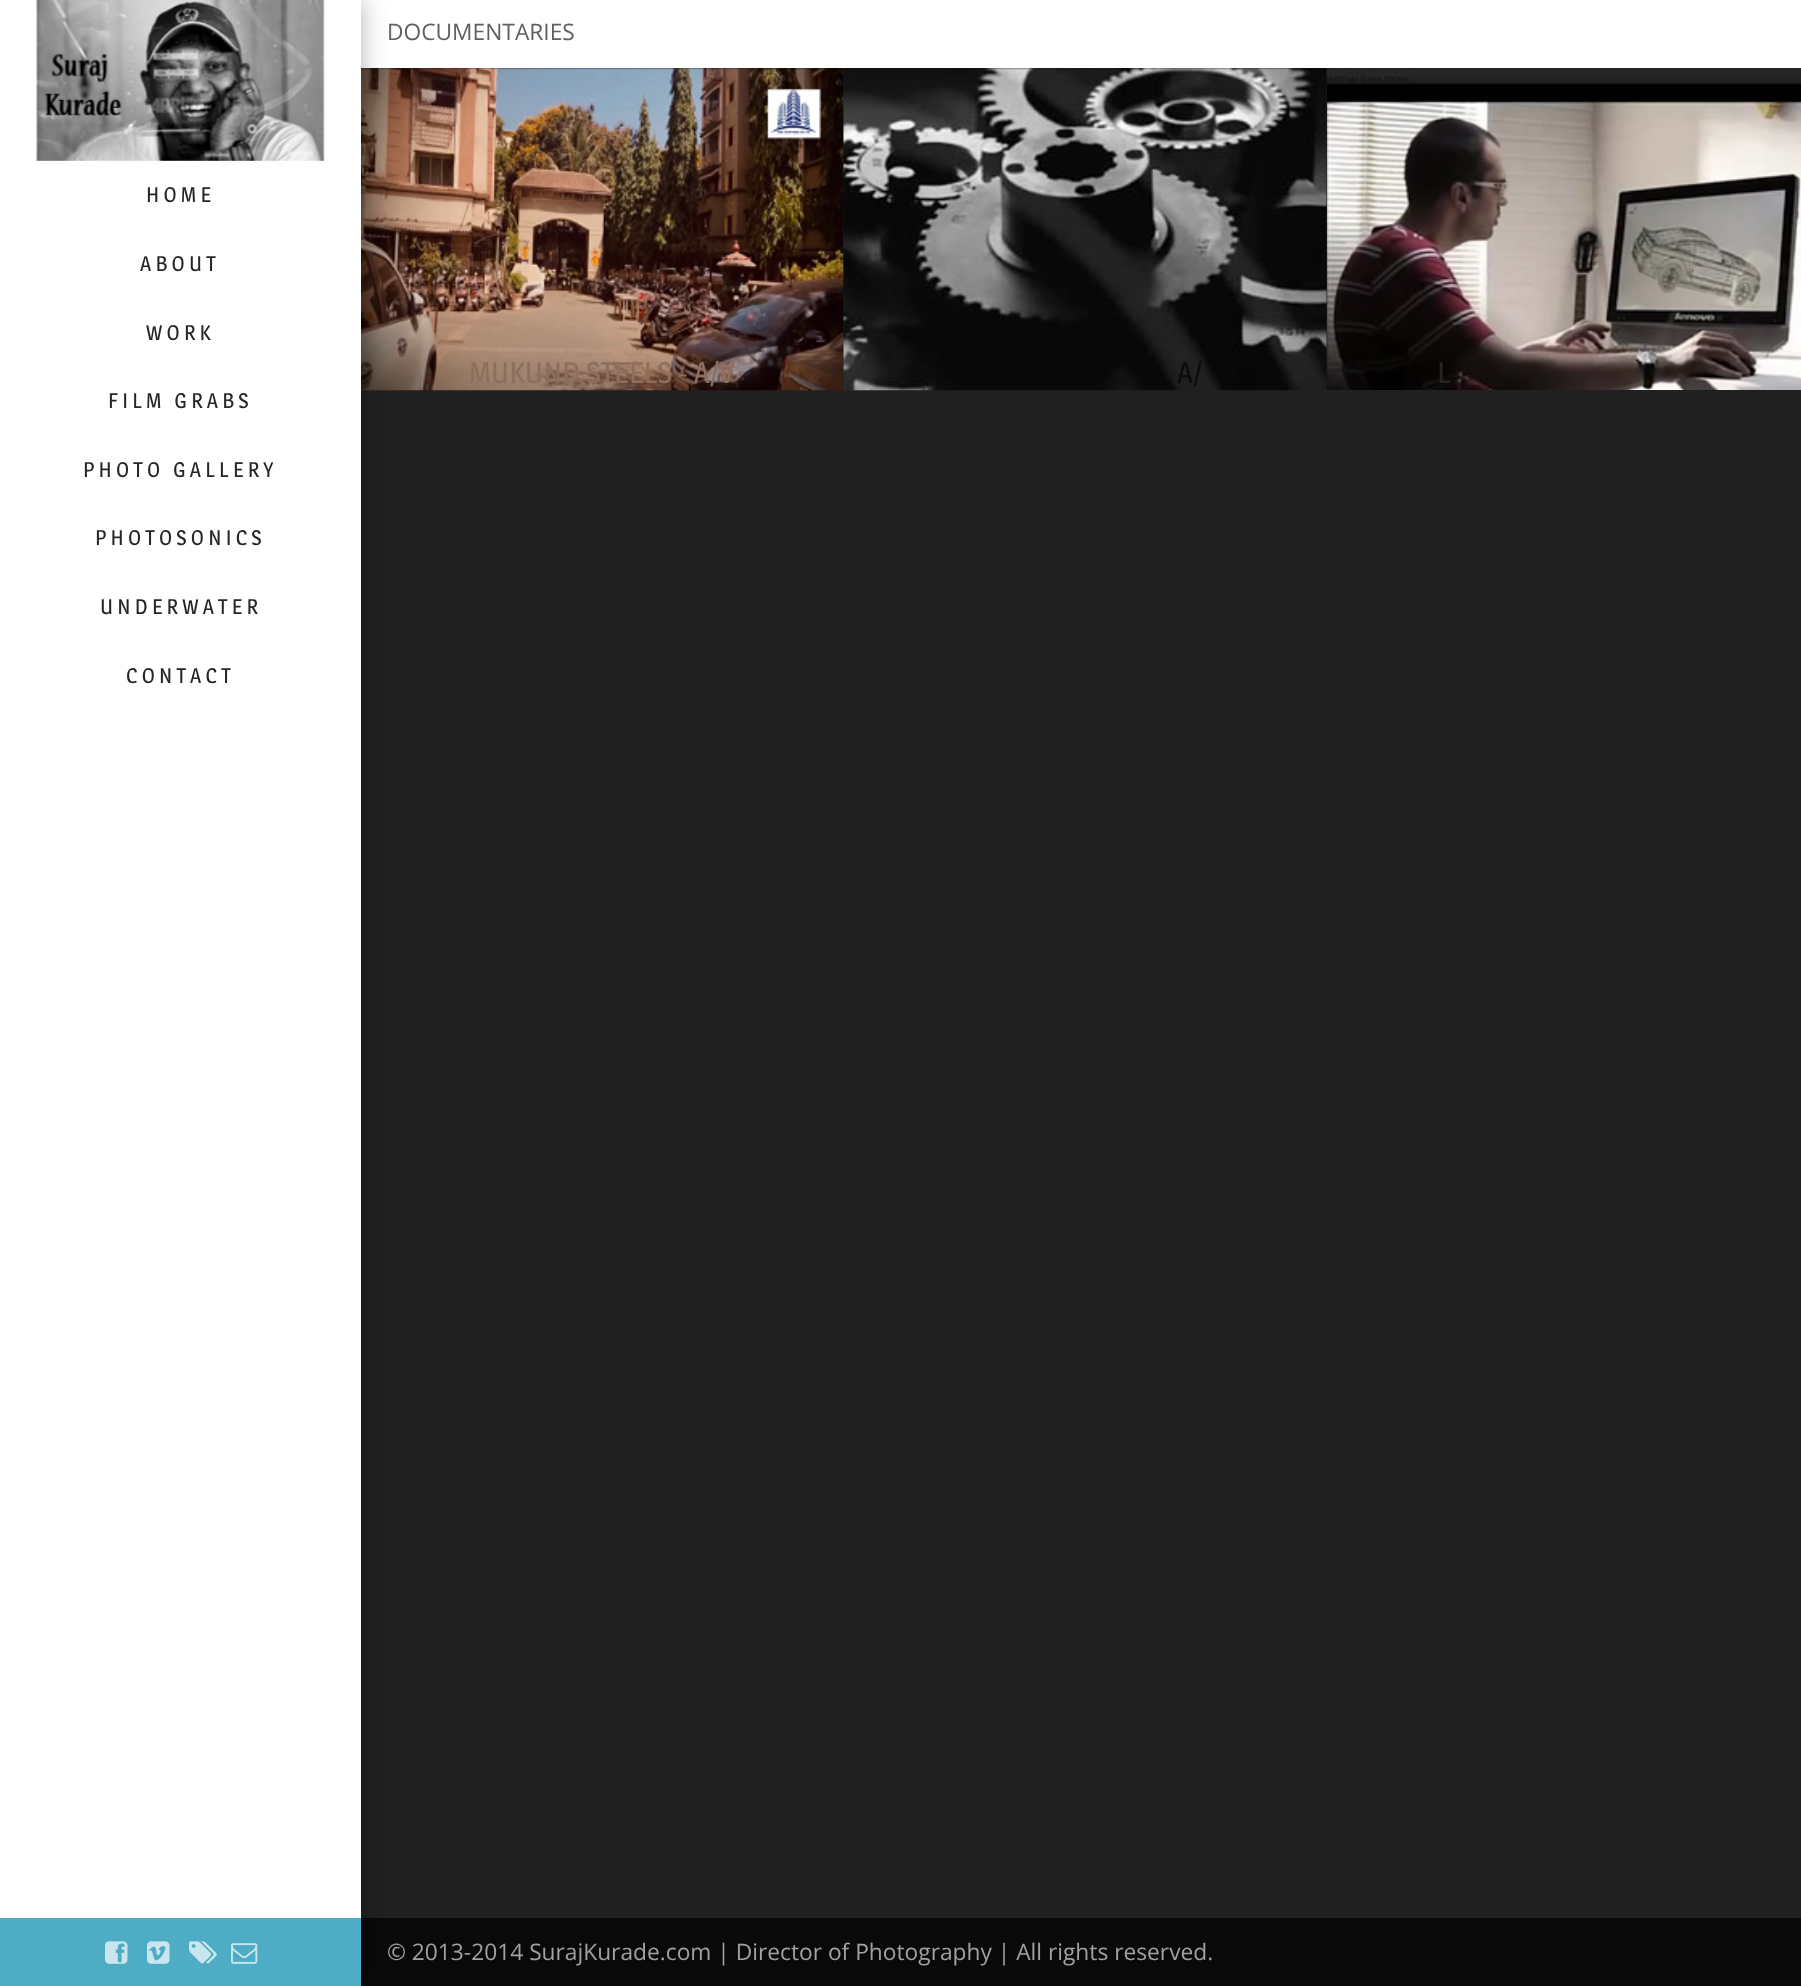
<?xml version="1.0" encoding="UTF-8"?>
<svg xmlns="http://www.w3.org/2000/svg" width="1801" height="1986">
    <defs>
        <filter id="blur1" x="-50%" y="-200%" width="200%" height="500%"><feGaussianBlur stdDeviation="13"/></filter>
    </defs>
    <rect width="100%" height="100%" fill="#202020"/>
    <image x="361" y="68" width="483" height="323" href="img_02.png"/>
    <image x="843" y="68" width="484" height="323" href="img_03.png"/>
    <image x="1327" y="68" width="474" height="322" href="img_04.png"/>
    <path d="M 361 68 V 70 H 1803 V 2 H 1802 V 68 Z" fill="#000000" fill-opacity="0.07"/>
    <rect x="361" y="0" width="1440" height="68" fill="#FFFFFF"/>
    <text x="387" y="40" font-family="Open Sans" font-size="22.75" fill="#606060">DOCUMENTARIES</text>
    <rect x="0" y="0" width="361" height="1986" fill="#000000" fill-opacity="0.3" filter="url(#blur1)"/>
    <rect x="0" y="0" width="361" height="1918" fill="#FFFFFF"/>
    <image x="36" y="0" width="289" height="161" href="img_01.png"/>
    <text x="146" y="202" font-family="Magra" font-size="21" letter-spacing="4.25" fill="#262626">HOME</text>
    <text x="140" y="271" font-family="Magra" font-size="21" letter-spacing="4.25" fill="#262626">ABOUT</text>
    <text x="146" y="340" font-family="Magra" font-size="21" letter-spacing="4.25" fill="#262626">WORK</text>
    <text x="108" y="408" font-family="Magra" font-size="21" letter-spacing="4.25" fill="#262626">FILM GRABS</text>
    <text x="83" y="477" font-family="Magra" font-size="21" letter-spacing="4.25" fill="#262626">PHOTO GALLERY</text>
    <text x="95" y="545" font-family="Magra" font-size="21" letter-spacing="4.25" fill="#262626">PHOTOSONICS</text>
    <text x="100" y="614" font-family="Magra" font-size="21" letter-spacing="4.25" fill="#262626">UNDERWATER</text>
    <text x="126" y="683" font-family="Magra" font-size="21" letter-spacing="4.25" fill="#262626">CONTACT</text>
    <text x="469" y="383" font-family="Magra" font-size="29.75" fill="#8E6F5E">MUKUND STEELS - A/V</text>
    <text x="1177" y="383" font-family="Magra" font-size="29.75" fill="#0C0C0C">A/</text>
    <text x="1437" y="383" font-family="Magra" font-size="29.75" fill="#2B2220">L</text>
    <rect x="361" y="1918" width="1440" height="68" fill="#000000" fill-opacity="0.7"/>
    <rect x="0" y="1918" width="361" height="68" fill="#4EADC5"/>
    <image x="105" y="1941" width="23" height="23" href="img_05.png"/>
    <image x="147" y="1941" width="23" height="23" href="img_06.png"/>
    <image x="189" y="1941" width="28" height="23" href="img_07.png"/>
    <image x="231" y="1943" width="27" height="21" href="img_08.png"/>
    <text x="387" y="1960" font-family="Open Sans" font-size="22.75" fill="#A1A1A1">© 2013-2014 SurajKurade.com | Director of Photography | All rights reserved.</text>
</svg>
